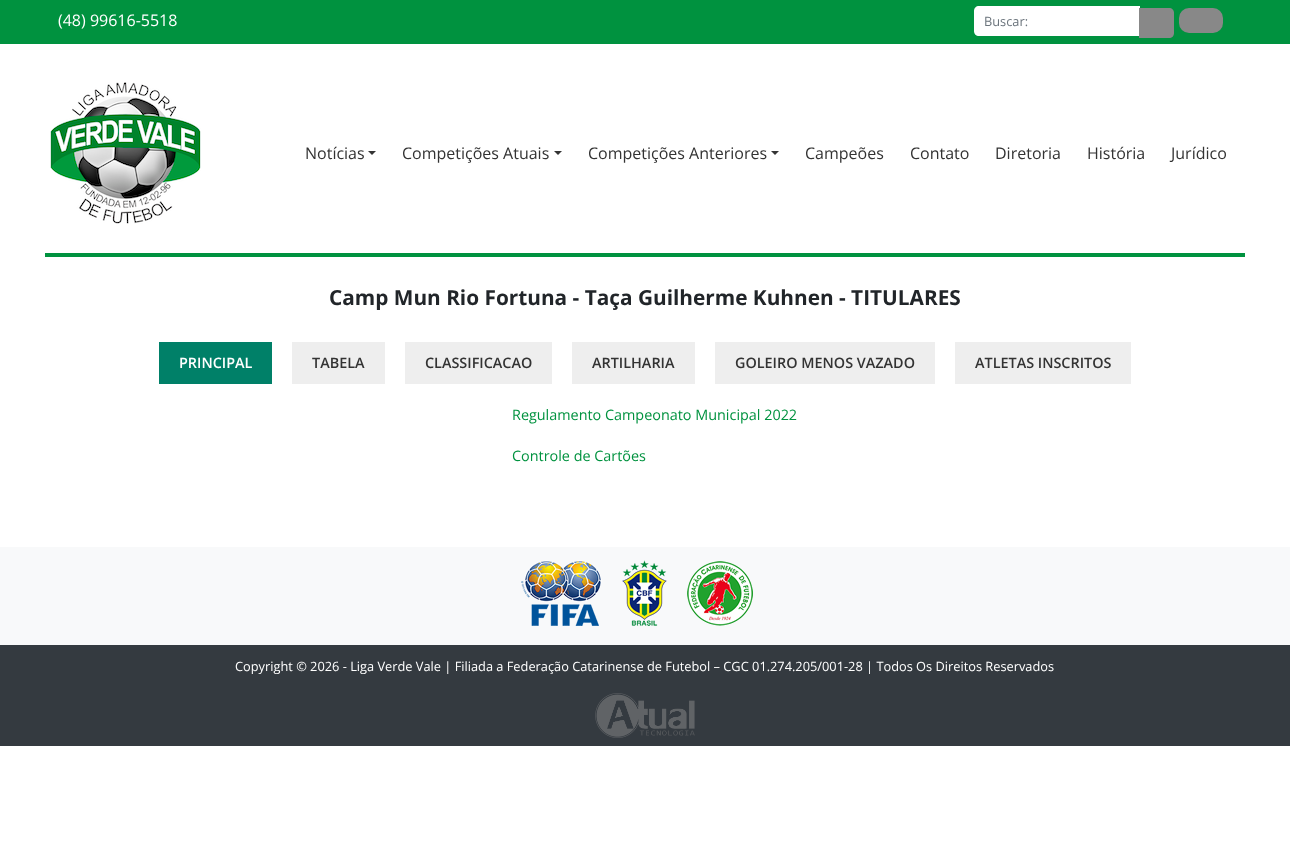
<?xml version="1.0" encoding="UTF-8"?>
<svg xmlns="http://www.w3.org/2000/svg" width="1290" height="865">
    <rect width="100%" height="100%" fill="#FFFFFF"/>
    <rect x="0" y="0" width="1290" height="44" fill="#00923F"/>
    <text x="58" y="26" font-family="Open Sans" font-size="16" fill="#FFFFFF">(48) 99616-5518</text>
    <path d="M 979 6 H 1140 V 36 H 979 C 976 36 974 34 974 31 V 11 C 974 8 976 6 979 6 Z" fill="#FFFFFF"/>
    <text x="984" y="26" font-family="Open Sans" font-size="12.8" fill="#6C757D">Buscar:</text>
    <path d="M 1139 8 H 1169 C 1172 8 1174 10 1174 13 V 33 C 1174 36 1172 38 1169 38 H 1139 Z" fill="#888888"/>
    <rect x="1179" y="8" width="44" height="25" rx="10" fill="#888888"/>
    <rect x="45" y="253" width="1200" height="4" fill="#00923F"/>
    <image x="50" y="82" width="151" height="142" href="img_01.png"/>
    <text x="305" y="159" font-family="Open Sans" font-size="16" fill="#333333">Notícias</text>
    <path d="M 368 151 H 376 L 372 155 Z" fill="#343434"/>
    <text x="402" y="159" font-family="Open Sans" font-size="16" fill="#333333">Competições Atuais</text>
    <path d="M 554 151 H 562 L 558 155 Z" fill="#343434"/>
    <text x="588" y="159" font-family="Open Sans" font-size="16" fill="#333333">Competições Anteriores</text>
    <path d="M 771 151 H 779 L 775 155 Z" fill="#343434"/>
    <text x="805" y="159" font-family="Open Sans" font-size="16" fill="#333333">Campeões</text>
    <text x="910" y="159" font-family="Open Sans" font-size="16" fill="#333333">Contato</text>
    <text x="995" y="159" font-family="Open Sans" font-size="16" fill="#333333">Diretoria</text>
    <text x="1087" y="159" font-family="Open Sans" font-size="16" fill="#333333">História</text>
    <text x="1171" y="159" font-family="Open Sans" font-size="16" fill="#333333">Jurídico</text>
    <text x="329" y="305" font-family="Open Sans" font-size="20.8" font-weight="700" fill="#212529">Camp Mun Rio Fortuna - Taça Guilherme Kuhnen - TITULARES</text>
    <rect x="159" y="342" width="113" height="42" fill="#008068"/>
    <text x="179" y="368" font-family="Open Sans" font-size="14.4" font-weight="600" fill="#FFFFFF">PRINCIPAL</text>
    <rect x="292" y="342" width="93" height="42" fill="#EEEEEE"/>
    <text x="312" y="368" font-family="Open Sans" font-size="14.4" font-weight="600" fill="#333333">TABELA</text>
    <rect x="405" y="342" width="147" height="42" fill="#EEEEEE"/>
    <text x="425" y="368" font-family="Open Sans" font-size="14.4" font-weight="600" fill="#333333">CLASSIFICACAO</text>
    <rect x="572" y="342" width="123" height="42" fill="#EEEEEE"/>
    <text x="592" y="368" font-family="Open Sans" font-size="14.4" font-weight="600" fill="#333333">ARTILHARIA</text>
    <rect x="715" y="342" width="220" height="42" fill="#EEEEEE"/>
    <text x="735" y="368" font-family="Open Sans" font-size="14.4" font-weight="600" fill="#333333">GOLEIRO MENOS VAZADO</text>
    <rect x="955" y="342" width="176" height="42" fill="#EEEEEE"/>
    <text x="975" y="368" font-family="Open Sans" font-size="14.4" font-weight="600" fill="#333333">ATLETAS INSCRITOS</text>
    <text x="512" y="420" font-family="Open Sans" font-size="14.4" fill="#00923F">Regulamento Campeonato Municipal 2022</text>
    <text x="512" y="461" font-family="Open Sans" font-size="14.4" fill="#00923F">Controle de Cartões</text>
    <rect x="0" y="645" width="1290" height="101" fill="#343A40"/>
    <rect x="0" y="547" width="1290" height="98" fill="#F8F9FA"/>
    <image x="521" y="560" width="81" height="66" href="img_02.png"/>
    <image x="622" y="560" width="45" height="66" href="img_03.png"/>
    <image x="687" y="561" width="66" height="65" href="img_04.png"/>
    <text x="235" y="671" font-family="Open Sans" font-size="12.8" fill="#FFFFFF">Copyright © 2026 - Liga Verde Vale | Filiada a Federação Catarinense de Futebol – CGC 01.274.205/001-28 | Todos Os Direitos Reservados</text>
    <image x="595" y="693" width="100" height="45" href="img_05.png"/>
</svg>
